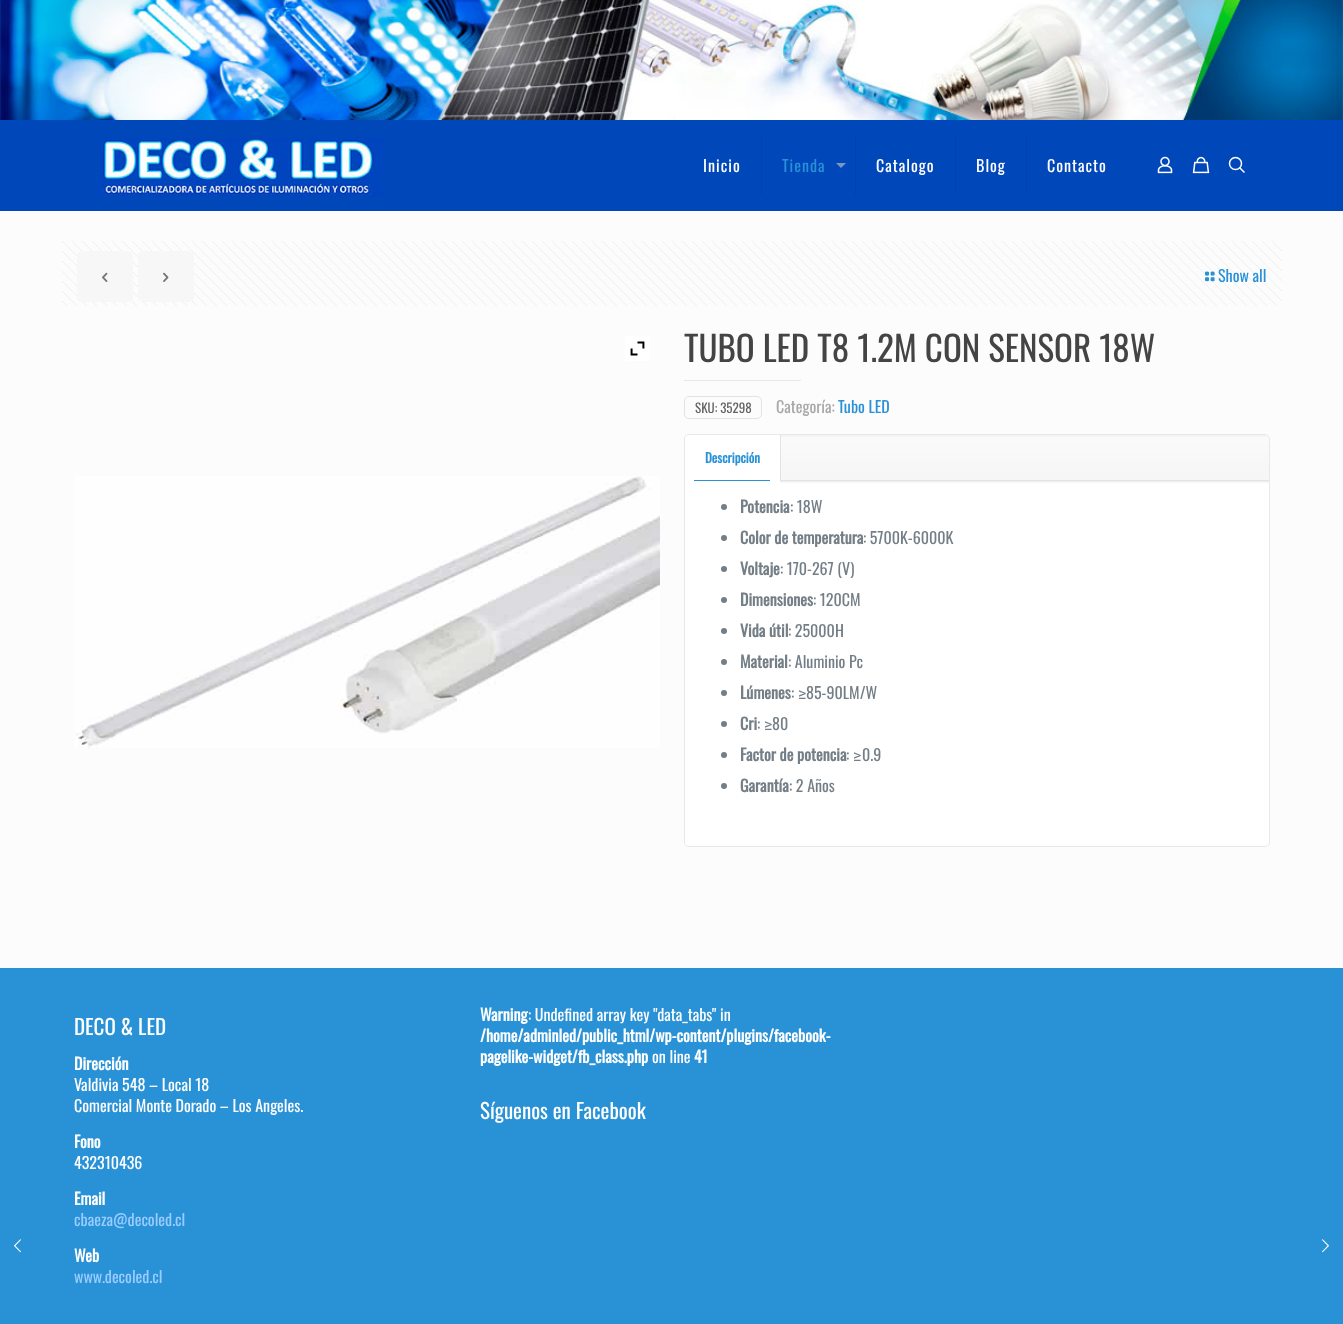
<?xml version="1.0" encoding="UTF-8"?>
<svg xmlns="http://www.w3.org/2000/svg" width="1343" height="1324">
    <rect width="100%" height="100%" fill="#FCFCFC"/>
    <rect x="0" y="968" width="1343" height="356" fill="#2991D6"/>
    <image x="14" y="1239" width="7" height="14" href="img_01.png"/>
    <image x="0" y="0" width="1343" height="120" href="img_02.png"/>
    <rect x="0" y="120" width="1343" height="91" fill="#0047B9"/>
    <image x="98" y="137" width="287" height="60" href="img_03.png"/>
    <rect x="761" y="135" width="1" height="60" fill="#0043B0"/>
    <text x="703" y="172" font-family="Oswald" font-size="16" letter-spacing="1" fill="#FFFFFF">Inicio</text>
    <rect x="855" y="135" width="1" height="60" fill="#0043B0"/>
    <text x="782" y="172" font-family="Oswald" font-size="16" letter-spacing="1" fill="#2991D6">Tienda</text>
    <path d="M 836 163 H 846 L 841 168 Z" fill="#7A97C4"/>
    <rect x="955" y="135" width="1" height="60" fill="#0043B0"/>
    <text x="876" y="172" font-family="Oswald" font-size="16" letter-spacing="1" fill="#FFFFFF">Catalogo</text>
    <rect x="1026" y="135" width="1" height="60" fill="#0043B0"/>
    <text x="976" y="172" font-family="Oswald" font-size="16" letter-spacing="1" fill="#FFFFFF">Blog</text>
    <text x="1047" y="172" font-family="Oswald" font-size="16" letter-spacing="1" fill="#FFFFFF">Contacto</text>
    <image x="1157" y="156" width="16" height="18" href="img_04.png"/>
    <image x="1192" y="156" width="18" height="18" href="img_05.png"/>
    <circle cx="1235.5" cy="163.5" r="6" fill="none" stroke="#FFFFFF" stroke-width="1.5"/>
    <path d="M 1239.5 167.5 L 1244.5 172.5" fill="none" stroke="#FFFFFF" stroke-width="1.5"/>
    <image x="62" y="241" width="1220" height="65" href="img_06.png"/>
    <rect x="77" y="251" width="56" height="51" rx="5" fill="#F7F7F7"/>
    <image x="102" y="272" width="6" height="10" href="img_07.png"/>
    <rect x="138" y="251" width="56" height="51" rx="5" fill="#F7F7F7"/>
    <image x="163" y="272" width="6" height="10" href="img_08.png"/>
    <image x="1205" y="271" width="10" height="11" href="img_09.png"/>
    <text x="1218" y="282" font-family="Oswald" font-size="16" fill="#2991D6">Show all</text>
    <rect x="625" y="336" width="25" height="25" fill="#FFFFFF"/>
    <image x="630" y="341" width="15" height="15" href="img_10.png"/>
    <image x="74" y="476" width="586" height="272" href="img_11.png"/>
    <text x="684" y="362" font-family="Oswald" font-size="35" fill="#444444">TUBO LED T8 1.2M CON SENSOR 18W</text>
    <rect x="684" y="380" width="117" height="1" fill="#E8E8E8"/>
    <rect x="684.5" y="396.5" width="77" height="22" rx="4.5" fill="none" stroke="#E3E3E3"/>
    <text x="695" y="413" font-family="Oswald" font-size="13" fill="#626262">SKU: 35298</text>
    <text x="776" y="413" font-family="Oswald" font-size="16" fill="#A8A8A8">Categoría:</text>
    <text x="838" y="413" font-family="Oswald" font-size="16" fill="#2991D6">Tubo LED</text>
    <rect x="684.5" y="434.5" width="585" height="412" rx="4.5" fill="none" stroke="#E8E8E8"/>
    <image x="685" y="435" width="584" height="45" href="img_12.png"/>
    <rect x="780" y="480" width="489" height="1" fill="#E2E2E2"/>
    <rect x="780" y="435" width="1" height="45" fill="#000000" fill-opacity="0.08"/>
    <path d="M 689 435 H 780 V 480 H 685 V 439 C 685 437 687 435 689 435 Z" fill="#FFFFFF"/>
    <text x="705" y="463" font-family="Oswald" font-size="13" font-weight="700" fill="#2991D6">Descripción</text>
    <rect x="685" y="480" width="95" height="1" fill="#FFFFFF"/>
    <rect x="694" y="480" width="76" height="1" fill="#2991D6"/>
    <path d="M 685 481 H 1269 V 842 C 1269 844 1267 846 1265 846 H 689 C 687 846 685 844 685 842 Z" fill="#FFFFFF"/>
    <image x="780" y="481" width="489" height="2" href="img_13.png"/>
    <circle cx="724" cy="507" r="3" fill="#737E86"/>
    <text x="740" y="513" font-family="Oswald" font-size="16" font-weight="700" fill="#737E86">Potencia</text>
    <text x="790" y="513" font-family="Oswald" font-size="16" fill="#737E86">: 18W</text>
    <circle cx="724" cy="538" r="3" fill="#737E86"/>
    <text x="740" y="544" font-family="Oswald" font-size="16" font-weight="700" fill="#737E86">Color de temperatura</text>
    <text x="863" y="544" font-family="Oswald" font-size="16" fill="#737E86">: 5700K-6000K</text>
    <circle cx="724" cy="569" r="3" fill="#737E86"/>
    <text x="740" y="575" font-family="Oswald" font-size="16" font-weight="700" fill="#737E86">Voltaje</text>
    <text x="780" y="575" font-family="Oswald" font-size="16" fill="#737E86">: 170-267 (V)</text>
    <circle cx="724" cy="600" r="3" fill="#737E86"/>
    <text x="740" y="606" font-family="Oswald" font-size="16" font-weight="700" fill="#737E86">Dimensiones</text>
    <text x="813" y="606" font-family="Oswald" font-size="16" fill="#737E86">: 120CM</text>
    <circle cx="724" cy="631" r="3" fill="#737E86"/>
    <text x="740" y="637" font-family="Oswald" font-size="16" font-weight="700" fill="#737E86">Vida útil</text>
    <text x="788" y="637" font-family="Oswald" font-size="16" fill="#737E86">: 25000H</text>
    <circle cx="724" cy="662" r="3" fill="#737E86"/>
    <text x="740" y="668" font-family="Oswald" font-size="16" font-weight="700" fill="#737E86">Material</text>
    <text x="788" y="668" font-family="Oswald" font-size="16" fill="#737E86">: Aluminio Pc</text>
    <circle cx="724" cy="693" r="3" fill="#737E86"/>
    <text x="740" y="699" font-family="Oswald" font-size="16" font-weight="700" fill="#737E86">Lúmenes</text>
    <text x="791" y="699" font-family="Oswald" font-size="16" fill="#737E86">:</text>
    <text x="798" y="699" font-family="Roboto" font-size="16" fill="#737E86">≥</text>
    <text x="806" y="699" font-family="Oswald" font-size="16" fill="#737E86">85-90LM/W</text>
    <circle cx="724" cy="724" r="3" fill="#737E86"/>
    <text x="740" y="730" font-family="Oswald" font-size="16" font-weight="700" fill="#737E86">Cri</text>
    <text x="757" y="730" font-family="Oswald" font-size="16" fill="#737E86">:</text>
    <text x="764" y="730" font-family="Roboto" font-size="16" fill="#737E86">≥</text>
    <text x="772" y="730" font-family="Oswald" font-size="16" fill="#737E86">80</text>
    <circle cx="724" cy="755" r="3" fill="#737E86"/>
    <text x="740" y="761" font-family="Oswald" font-size="16" font-weight="700" fill="#737E86">Factor de potencia</text>
    <text x="846" y="761" font-family="Oswald" font-size="16" fill="#737E86">:</text>
    <text x="853" y="761" font-family="Roboto" font-size="16" fill="#737E86">≥</text>
    <text x="862" y="761" font-family="Oswald" font-size="16" fill="#737E86">0.9</text>
    <circle cx="724" cy="786" r="3" fill="#737E86"/>
    <text x="740" y="792" font-family="Oswald" font-size="16" font-weight="700" fill="#737E86">Garantía</text>
    <text x="789" y="792" font-family="Oswald" font-size="16" fill="#737E86">: 2 Años</text>
    <text x="74" y="1035" font-family="Oswald" font-size="21" fill="#FFFFFF">DECO &amp; LED</text>
    <text x="74" y="1070" font-family="Oswald" font-size="16" font-weight="700" fill="#FFFFFF">Dirección</text>
    <text font-family="Oswald" font-size="16" fill="#FFFFFF">
        <tspan x="74" y="1091">Valdivia 548 – Local 18</tspan>
        <tspan x="74" y="1112">Comercial Monte Dorado – Los Angeles.</tspan>
    </text>
    <text x="74" y="1148" font-family="Oswald" font-size="16" font-weight="700" fill="#FFFFFF">Fono</text>
    <text x="74" y="1169" font-family="Oswald" font-size="16" fill="#FFFFFF">432310436</text>
    <text x="74" y="1205" font-family="Oswald" font-size="16" font-weight="700" fill="#FFFFFF">Email</text>
    <text x="74" y="1226" font-family="Oswald" font-size="16" fill="#99CCFF">cbaeza@decoled.cl</text>
    <text x="74" y="1262" font-family="Oswald" font-size="16" font-weight="700" fill="#FFFFFF">Web</text>
    <text x="74" y="1283" font-family="Oswald" font-size="16" fill="#99CCFF">www.decoled.cl</text>
    <text x="480" y="1021" font-family="Oswald" font-size="16" font-weight="700" fill="#FFFFFF">Warning</text>
    <text x="528" y="1021" font-family="Oswald" font-size="16" fill="#FFFFFF">: Undefined array key "data_tabs" in</text>
    <text font-family="Oswald" font-size="16" font-weight="700" fill="#FFFFFF">
        <tspan x="480" y="1042">/home/adminled/public_html/wp-content/plugins/facebook-</tspan>
        <tspan x="480" y="1063">pagelike-widget/fb_class.php</tspan>
    </text>
    <text x="652" y="1063" font-family="Oswald" font-size="16" fill="#FFFFFF">on line</text>
    <text x="694" y="1063" font-family="Oswald" font-size="16" font-weight="700" fill="#FFFFFF">41</text>
    <text x="480" y="1119" font-family="Oswald" font-size="21" fill="#FFFFFF">Síguenos en Facebook</text>
    <image x="1322" y="1239" width="7" height="14" href="img_14.png"/>
</svg>
